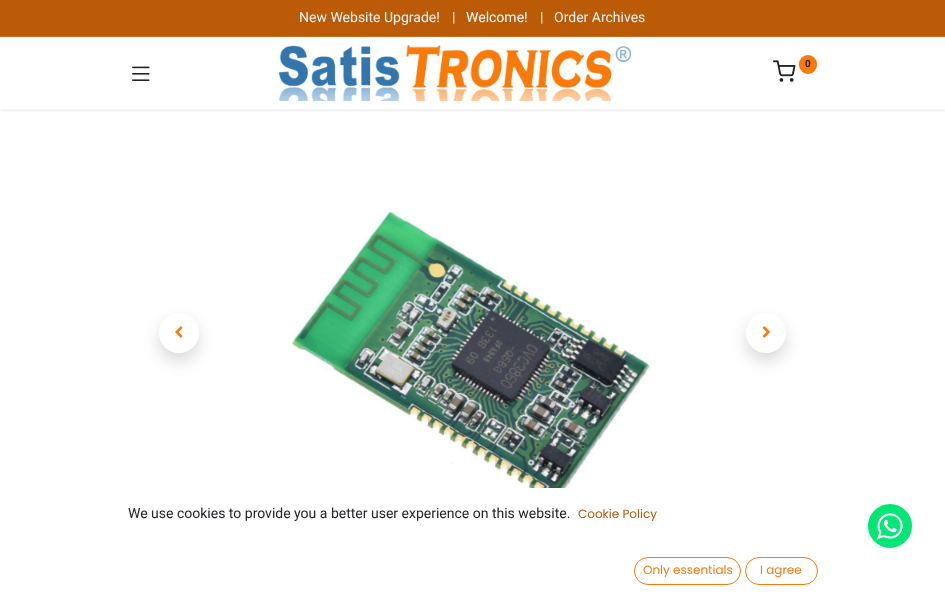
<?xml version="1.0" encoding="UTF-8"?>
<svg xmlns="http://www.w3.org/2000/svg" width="945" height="601">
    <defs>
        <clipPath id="clip1"><rect x="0" y="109" width="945" height="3"/></clipPath>
        <filter id="blur1" x="-50%" y="-200%" width="200%" height="500%"><feGaussianBlur stdDeviation="2"/></filter>
        <filter id="blur2" x="-50%" y="-200%" width="200%" height="500%"><feGaussianBlur stdDeviation="8"/></filter>
    </defs>
    <rect width="100%" height="100%" fill="#FFFFFF"/>
    <rect x="0" y="0" width="945" height="36" fill="#BB5B07"/>
    <rect x="0" y="36" width="945" height="1" fill="#C36F25"/>
    <text x="299" y="22" font-family="Roboto" font-size="14" fill="#EDF3F8">New Website Upgrade!</text>
    <text x="452" y="22" font-family="Roboto" font-size="14" fill="#FFFFFF">|</text>
    <text x="466" y="22" font-family="Roboto" font-size="14" fill="#FFFFFF">Welcome!</text>
    <text x="540" y="22" font-family="Roboto" font-size="14" fill="#FFFFFF">|</text>
    <text x="554" y="22" font-family="Roboto" font-size="14" fill="#EDF3F8">Order Archives</text>
    <g clip-path="url(#clip1)">
        <rect x="0" y="39" width="945" height="72" fill="#000000" fill-opacity="0.07" filter="url(#blur1)"/>
    </g>
    <image x="279" y="45" width="352" height="56" href="img_01.png"/>
    <image x="773" y="60" width="23" height="22" href="img_02.png"/>
    <rect x="799" y="55" width="18" height="19" rx="9" fill="#F97909"/>
    <text x="805" y="67" font-family="Roboto" font-size="10" font-weight="700" fill="#212529">0</text>
    <image x="132" y="66" width="18" height="15" href="img_03.png"/>
    <rect x="159" y="321" width="40" height="40" rx="20" fill="#000000" fill-opacity="0.15" filter="url(#blur2)"/>
    <circle cx="179" cy="333" r="20" fill="#FFFFFF"/>
    <image x="175" y="326" width="8" height="12" href="img_04.png"/>
    <image x="292" y="211" width="359" height="277" href="img_05.png"/>
    <rect x="746" y="321" width="40" height="40" rx="20" fill="#000000" fill-opacity="0.15" filter="url(#blur2)"/>
    <circle cx="766" cy="333" r="20" fill="#FFFFFF"/>
    <image x="762" y="326" width="8" height="12" href="img_06.png"/>
    <text x="128" y="518" font-family="Roboto" font-size="14" fill="#212529">We use cookies to provide you a better user experience on this website.</text>
    <text x="578" y="518" font-family="Poppins" font-size="12" fill="#B15504">Cookie Policy</text>
    <rect x="634.5" y="557.5" width="106" height="27" rx="13.5" fill="none" stroke="#F97909"/>
    <text x="643" y="574" font-family="Poppins" font-size="12" fill="#F97909">Only essentials</text>
    <rect x="745.5" y="557.5" width="72" height="27" rx="13.5" fill="none" stroke="#F97909"/>
    <text x="760" y="574" font-family="Poppins" font-size="12" fill="#F97909">I agree</text>
    <circle cx="890" cy="526" r="23.5" fill="#01E675" stroke="#FFFFFF" stroke-width="3"/>
    <image x="877" y="513" width="26" height="27" href="img_07.png"/>
</svg>
